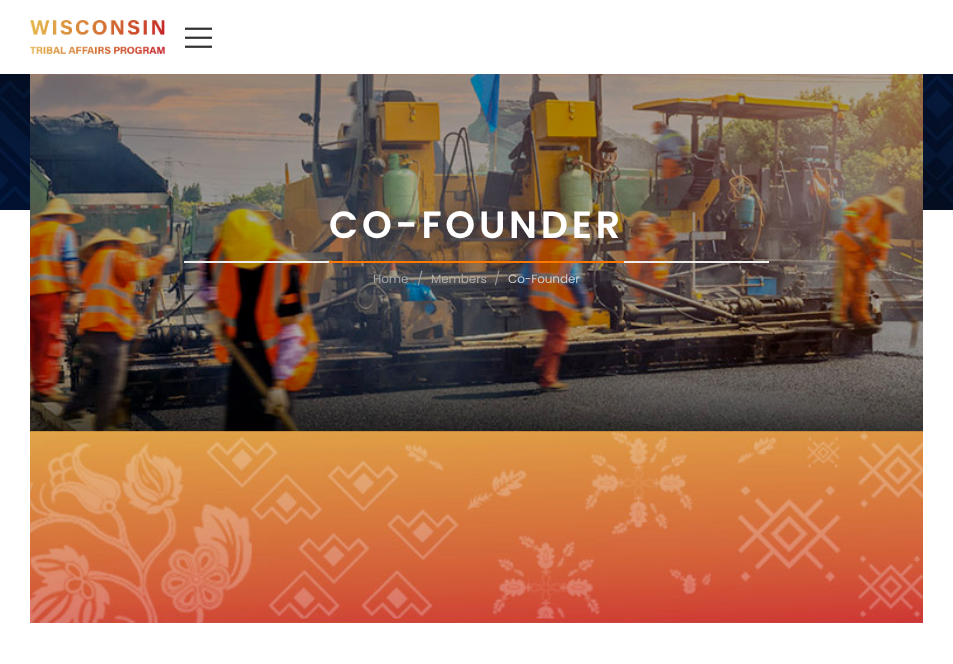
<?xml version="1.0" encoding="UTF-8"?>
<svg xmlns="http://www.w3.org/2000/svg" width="953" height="664">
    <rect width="100%" height="100%" fill="#FFFFFF"/>
    <image x="30" y="20" width="135" height="34" href="img_01.png"/>
    <image x="185" y="27" width="27" height="21" href="img_02.png"/>
    <image x="0" y="74" width="953" height="136" href="img_03.png"/>
    <image x="30" y="74" width="893" height="549" href="img_04.png"/>
    <text x="329" y="238" font-family="Poppins" font-size="38" font-weight="600" letter-spacing="3.75" fill="#FFFFFF">CO-FOUNDER</text>
    <rect x="184" y="261" width="585" height="2" fill="#EEEEEE"/>
    <rect x="329" y="261" width="295" height="2" fill="#FD7800"/>
    <text x="373" y="283" font-family="Poppins" font-size="12" letter-spacing="-0.1" fill="#A6A7A9">Home</text>
    <text x="417" y="283" font-family="Poppins" font-size="13" letter-spacing="-0.1" fill="#999EA3">/</text>
    <text x="431" y="283" font-family="Poppins" font-size="12" letter-spacing="-0.1" fill="#AEACAA">Members</text>
    <text x="494" y="283" font-family="Poppins" font-size="13" letter-spacing="-0.1" fill="#9B9998">/</text>
    <text x="508" y="283" font-family="Poppins" font-size="12" letter-spacing="-0.1" fill="#CCCCCC">Co-Founder</text>
</svg>
